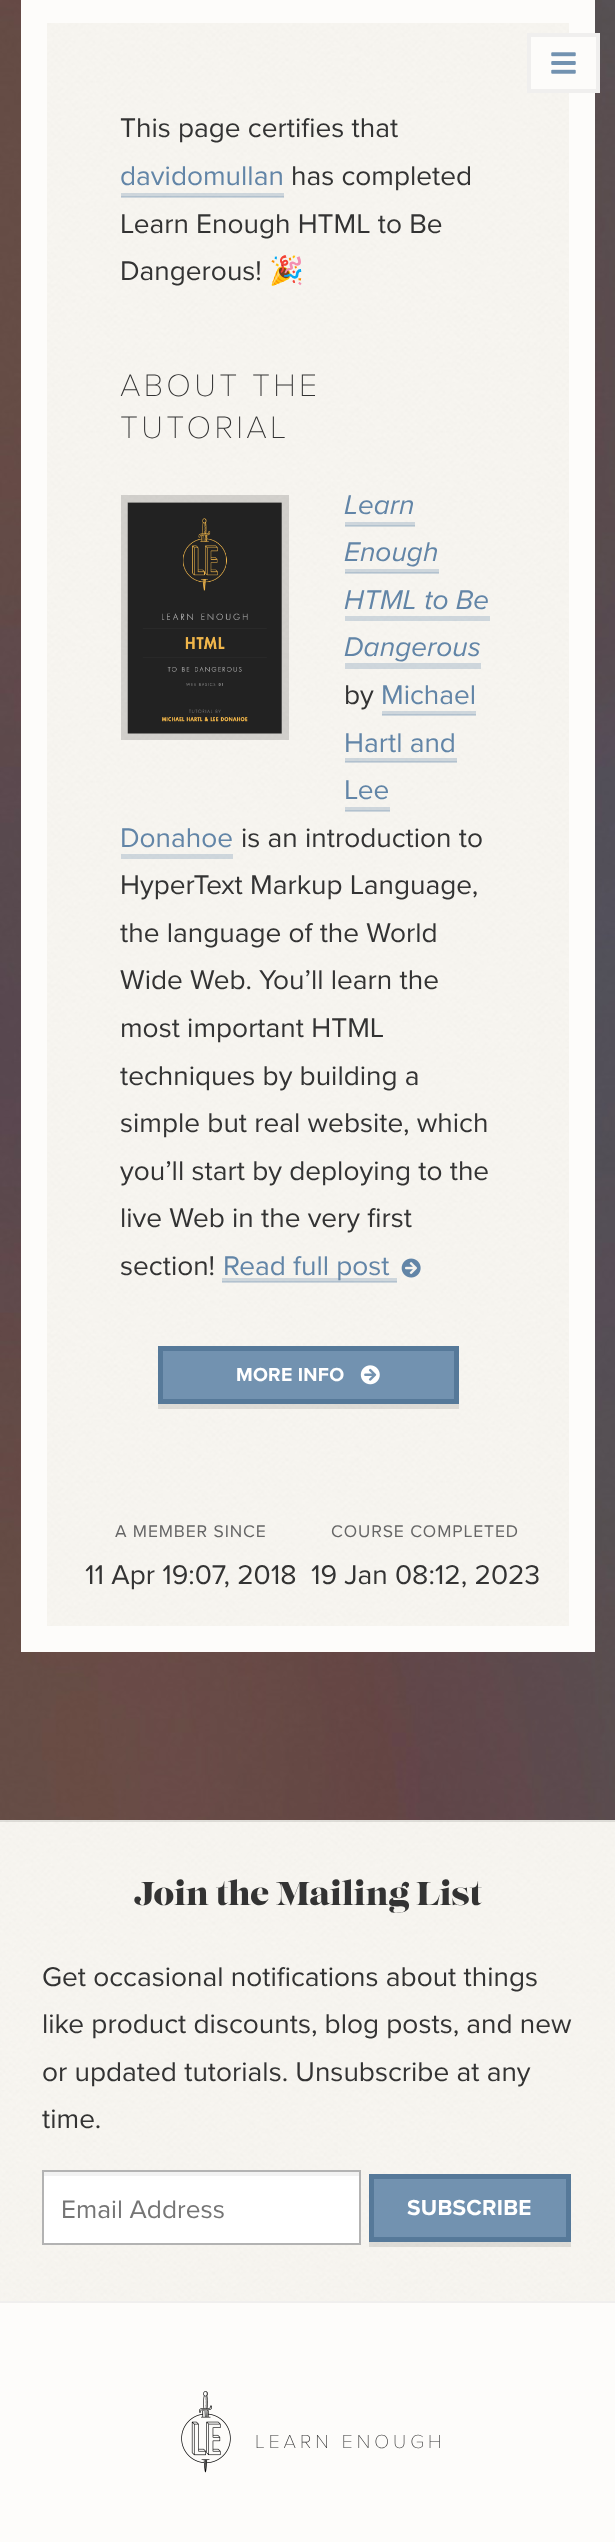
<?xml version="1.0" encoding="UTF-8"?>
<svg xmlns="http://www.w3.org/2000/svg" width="615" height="2542">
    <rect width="100%" height="100%" fill="#FFFFFF"/>
    <image x="0" y="0" width="615" height="1820" href="img_02.png"/>
    <rect x="47" y="23" width="522" height="1603" fill="#FCFAF5"/>
    <image x="47" y="23" width="522" height="1603" href="img_03.png"/>
    <rect x="34" y="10" width="548" height="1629" fill="none" stroke="#FDFCFA" stroke-width="26"/>
    <rect x="529" y="35" width="69" height="56" fill="#FDFCFA" stroke="#F0EFEE" stroke-width="4"/>
    <image x="551" y="52" width="25" height="22" href="img_01.png"/>
    <text x="120" y="137" font-family="Proxima Nova" font-size="28" fill="#333333">This page certifies that</text>
    <text x="120" y="185" font-family="Proxima Nova" font-size="28" fill="#6285A7">davidomullan</text>
    <path d="M 121 196 V 198 H 284 V 158 V 196 Z" fill="#7292B0" fill-opacity="0.3"/>
    <rect x="121" y="193" width="163" height="4" fill="#7292B0" fill-opacity="0.3"/>
    <text x="291" y="185" font-family="Proxima Nova" font-size="28" fill="#333333">has completed</text>
    <text font-family="Proxima Nova" font-size="28" fill="#333333">
        <tspan x="120" y="233">Learn Enough HTML to Be</tspan>
        <tspan x="120" y="280">Dangerous!</tspan>
    </text>
    <text x="269" y="280" font-family="Noto Color Emoji" font-size="28" fill="#333333">🎉</text>
    <text font-family="Proxima Nova" font-size="32.25" font-weight="100" letter-spacing="3.25" fill="#333333">
        <tspan x="120" y="396">ABOUT THE</tspan>
        <tspan x="120" y="438">TUTORIAL</tspan>
    </text>
    <rect x="124.5" y="498.5" width="161" height="238" fill="none" stroke="#000000" stroke-opacity="0.15" stroke-width="7"/>
    <image x="127" y="502" width="155" height="232" href="img_04.png"/>
    <text x="344" y="514" font-family="Proxima Nova" font-size="28" font-style="italic" fill="#6285A7">Learn</text>
    <path d="M 345 525 V 527 H 415 V 487 V 525 Z" fill="#CED7DC"/>
    <rect x="345" y="522" width="70" height="4" fill="#7292B0" fill-opacity="0.3"/>
    <text x="344" y="561" font-family="Proxima Nova" font-size="28" font-style="italic" fill="#6285A7">Enough</text>
    <rect x="345" y="572" width="94" height="2" fill="#7292B0" fill-opacity="0.3"/>
    <rect x="345" y="569" width="94" height="4" fill="#7292B0" fill-opacity="0.3"/>
    <text x="344" y="609" font-family="Proxima Nova" font-size="28" font-style="italic" fill="#6285A7">HTML to Be</text>
    <rect x="345" y="620" width="145" height="1" fill="#7292B0" fill-opacity="0.3"/>
    <rect x="345" y="616" width="145" height="4" fill="#7292B0" fill-opacity="0.3"/>
    <text x="344" y="656" font-family="Proxima Nova" font-size="28" font-style="italic" fill="#6285A7">Dangerous</text>
    <rect x="345" y="667" width="136" height="2" fill="#7292B0" fill-opacity="0.3"/>
    <rect x="345" y="663" width="136" height="4" fill="#7292B0" fill-opacity="0.3"/>
    <text x="344" y="704" font-family="Proxima Nova" font-size="28" fill="#333333">by</text>
    <text x="381" y="704" font-family="Proxima Nova" font-size="28" fill="#6285A7">Michael</text>
    <rect x="382" y="714" width="94" height="2" fill="#7292B0" fill-opacity="0.3"/>
    <rect x="382" y="711" width="94" height="4" fill="#7292B0" fill-opacity="0.3"/>
    <text x="344" y="752" font-family="Proxima Nova" font-size="28" fill="#6285A7">Hartl and</text>
    <path d="M 345 761 V 763 H 457 V 723 V 761 Z" fill="#7292B0" fill-opacity="0.3"/>
    <rect x="345" y="758" width="112" height="4" fill="#7292B0" fill-opacity="0.3"/>
    <text x="344" y="799" font-family="Proxima Nova" font-size="28" fill="#6285A7">Lee</text>
    <rect x="345" y="810" width="45" height="2" fill="#CED6DC"/>
    <rect x="345" y="807" width="45" height="4" fill="#7292B0" fill-opacity="0.3"/>
    <text x="120" y="847" font-family="Proxima Nova" font-size="28" fill="#6285A7">Donahoe</text>
    <path d="M 121 858 V 859 H 233 V 819 V 858 Z" fill="#7292B0" fill-opacity="0.3"/>
    <rect x="121" y="854" width="112" height="4" fill="#7292B0" fill-opacity="0.3"/>
    <text x="241" y="847" font-family="Proxima Nova" font-size="28" fill="#333333">is an introduction to</text>
    <text font-family="Proxima Nova" font-size="28" fill="#333333">
        <tspan x="120" y="894">HyperText Markup Language,</tspan>
        <tspan x="120" y="942">the language of the World</tspan>
        <tspan x="120" y="989">Wide Web. You’ll learn the</tspan>
        <tspan x="120" y="1037">most important HTML</tspan>
        <tspan x="120" y="1085">techniques by building a</tspan>
        <tspan x="120" y="1132">simple but real website, which</tspan>
        <tspan x="120" y="1180">you’ll start by deploying to the</tspan>
        <tspan x="120" y="1227">live Web in the very first</tspan>
        <tspan x="120" y="1275">section!</tspan>
    </text>
    <path d="M 222 1255 V 1283 H 397 V 1281 H 222 Z" fill="#7292B0" fill-opacity="0.3"/>
    <rect x="222" y="1278" width="175" height="4" fill="#7292B0" fill-opacity="0.3"/>
    <text x="223" y="1275" font-family="Proxima Nova" font-size="28" fill="#6285A7">Read full post</text>
    <image x="401" y="1258" width="20" height="20" href="img_05.png"/>
    <path d="M 158 1404 V 1409 H 459 V 1351 H 458 V 1404 Z" fill="#000000" fill-opacity="0.1"/>
    <rect x="160.5" y="1348.5" width="296" height="53" fill="#7292B0" stroke="#567999" stroke-width="5"/>
    <text x="236" y="1381" font-family="Proxima Nova" font-size="19.5" font-weight="700" letter-spacing="0.25" fill="#FFFFFF">MORE INFO</text>
    <image x="360" y="1365" width="20" height="20" href="img_06.png"/>
    <text x="115" y="1537" font-family="Proxima Nova" font-size="17.5" letter-spacing="0.9" fill="#666666">A MEMBER SINCE</text>
    <text x="85" y="1584" font-family="Proxima Nova" font-size="28" fill="#333333">11 Apr 19:07, 2018</text>
    <text x="331" y="1537" font-family="Proxima Nova" font-size="17.5" letter-spacing="0.9" fill="#666666">COURSE COMPLETED</text>
    <text x="311" y="1584" font-family="Proxima Nova" font-size="28" fill="#333333">19 Jan 08:12, 2023</text>
    <rect x="0" y="1820" width="615" height="481" fill="#FCFAF5"/>
    <image x="0" y="1820" width="615" height="481" href="img_07.png"/>
    <rect x="0" y="1820" width="615" height="2" fill="#000000" fill-opacity="0.1"/>
    <text x="134" y="1905" font-family="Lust" font-size="32.75" fill="#333333">Join the Mailing List</text>
    <text font-family="Proxima Nova" font-size="28" fill="#333333">
        <tspan x="42" y="1986">Get occasional notifications about things</tspan>
        <tspan x="42" y="2033">like product discounts, blog posts, and new</tspan>
        <tspan x="42" y="2081">or updated tutorials. Unsubscribe at any</tspan>
        <tspan x="42" y="2128">time.</tspan>
    </text>
    <rect x="44" y="2176" width="315" height="67" fill="#FFFFFF"/>
    <rect x="44" y="2172" width="315" height="4" fill="#F2F2F2"/>
    <rect x="43" y="2171" width="317" height="73" fill="none" stroke="#B3B3B3" stroke-width="2"/>
    <text x="61" y="2218" font-family="Proxima Nova" font-size="26.25" fill="#757575">Email Address</text>
    <path d="M 369 2179 V 2247 H 571 V 2179 H 570 V 2242 H 369 Z" fill="#000000" fill-opacity="0.1"/>
    <rect x="371.5" y="2176.5" width="197" height="63" fill="#7292B0" stroke="#567999" stroke-width="5"/>
    <text x="407" y="2215" font-family="Proxima Nova" font-size="22.5" font-weight="700" letter-spacing="0.25" fill="#FFFFFF">SUBSCRIBE</text>
    <rect x="0" y="2303" width="615" height="239" fill="#FDFCFA"/>
    <rect x="0" y="2301" width="615" height="2" fill="#F0EFEE"/>
    <image x="181" y="2391" width="50" height="82" href="img_08.png"/>
    <text x="255" y="2448" font-family="Proxima Nova" font-size="19.5" font-weight="100" letter-spacing="4" fill="#333333">LEARN ENOUGH</text>
</svg>
